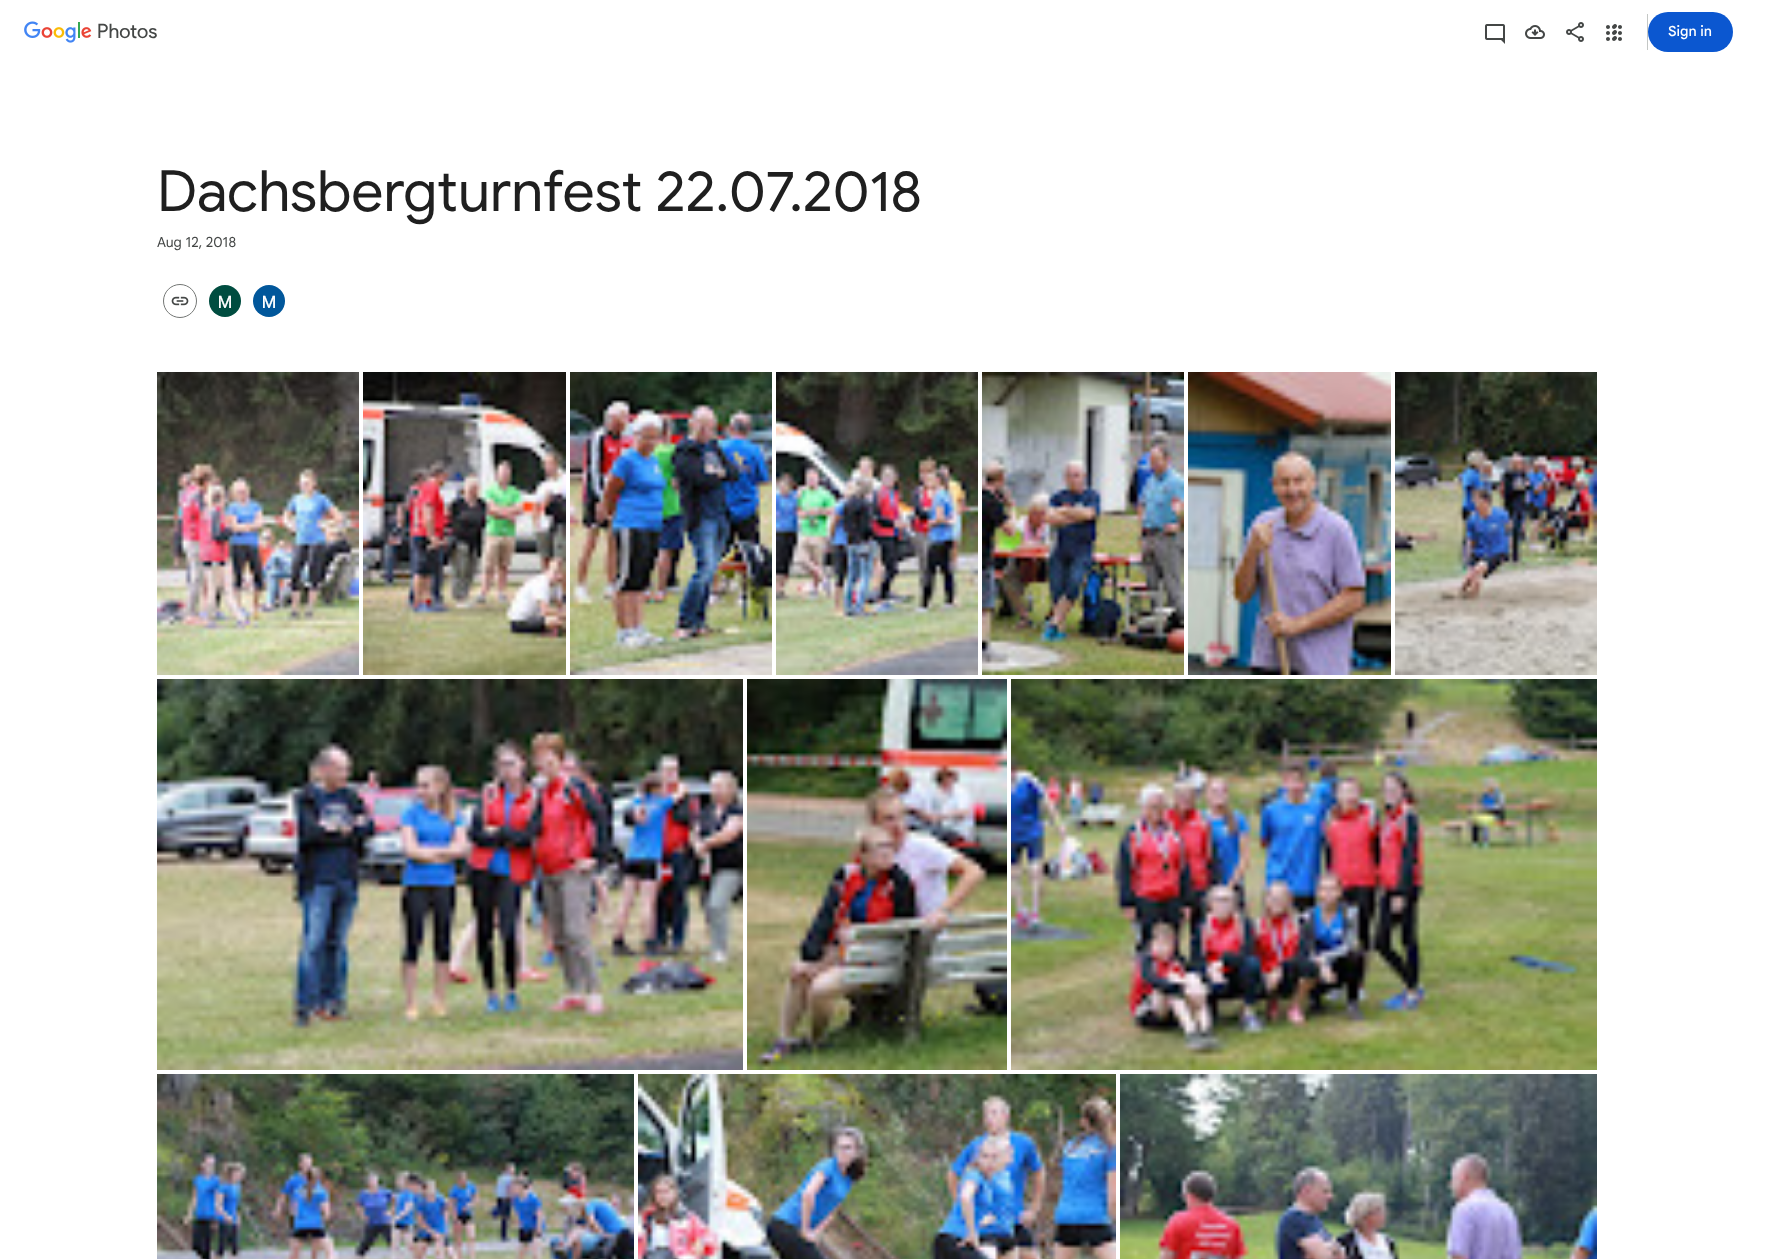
<?xml version="1.0" encoding="UTF-8"?>
<svg xmlns="http://www.w3.org/2000/svg" width="1769" height="1259">
    <rect width="100%" height="100%" fill="#FFFFFF"/>
    <image x="24" y="21" width="68" height="22" href="img_01.png"/>
    <text x="97" y="38" font-family="Product Sans" font-size="20" fill="#444746">Photos</text>
    <image x="1485" y="24" width="20" height="20" href="img_02.png"/>
    <image x="1525" y="25" width="20" height="14" href="img_03.png"/>
    <image x="1566" y="22" width="18" height="20" href="img_04.png"/>
    <image x="1613" y="24" width="4" height="16" href="img_05.png"/>
    <rect x="1647" y="14" width="1" height="36" fill="#C4C7C5"/>
    <text x="157" y="211" font-family="Google Sans" font-size="57" fill="#1F1F1F">Dachsbergturnfest 22.07.2018</text>
    <text x="157" y="247" font-family="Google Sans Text" font-size="14" fill="#444746">Aug 12, 2018</text>
    <circle cx="180" cy="301" r="16.5" fill="none" stroke="#747775"/>
    <image x="171" y="296" width="18" height="10" href="img_06.png"/>
    <image x="209" y="285" width="32" height="32" href="img_07.png"/>
    <image x="253" y="285" width="32" height="32" href="img_08.png"/>
    <image x="157" y="372" width="202" height="303" href="img_09.png"/>
    <image x="363" y="372" width="203" height="303" href="img_10.png"/>
    <image x="570" y="372" width="202" height="303" href="img_11.png"/>
    <image x="776" y="372" width="202" height="303" href="img_12.png"/>
    <image x="982" y="372" width="202" height="303" href="img_13.png"/>
    <image x="1188" y="372" width="203" height="303" href="img_14.png"/>
    <image x="1395" y="372" width="202" height="303" href="img_15.png"/>
    <image x="157" y="679" width="586" height="391" href="img_16.png"/>
    <image x="747" y="679" width="260" height="391" href="img_17.png"/>
    <image x="1011" y="679" width="586" height="391" href="img_18.png"/>
    <image x="157" y="1074" width="477" height="185" href="img_19.png"/>
    <image x="638" y="1074" width="478" height="185" href="img_20.png"/>
    <image x="1120" y="1074" width="477" height="185" href="img_21.png"/>
    <image x="1606" y="25" width="16" height="16" href="img_22.png"/>
    <rect x="1648" y="12" width="85" height="40" rx="20" fill="#0B57D0"/>
    <text x="1668" y="36" font-family="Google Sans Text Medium" font-size="14" font-weight="500" fill="#FFFFFF">Sign in</text>
</svg>
